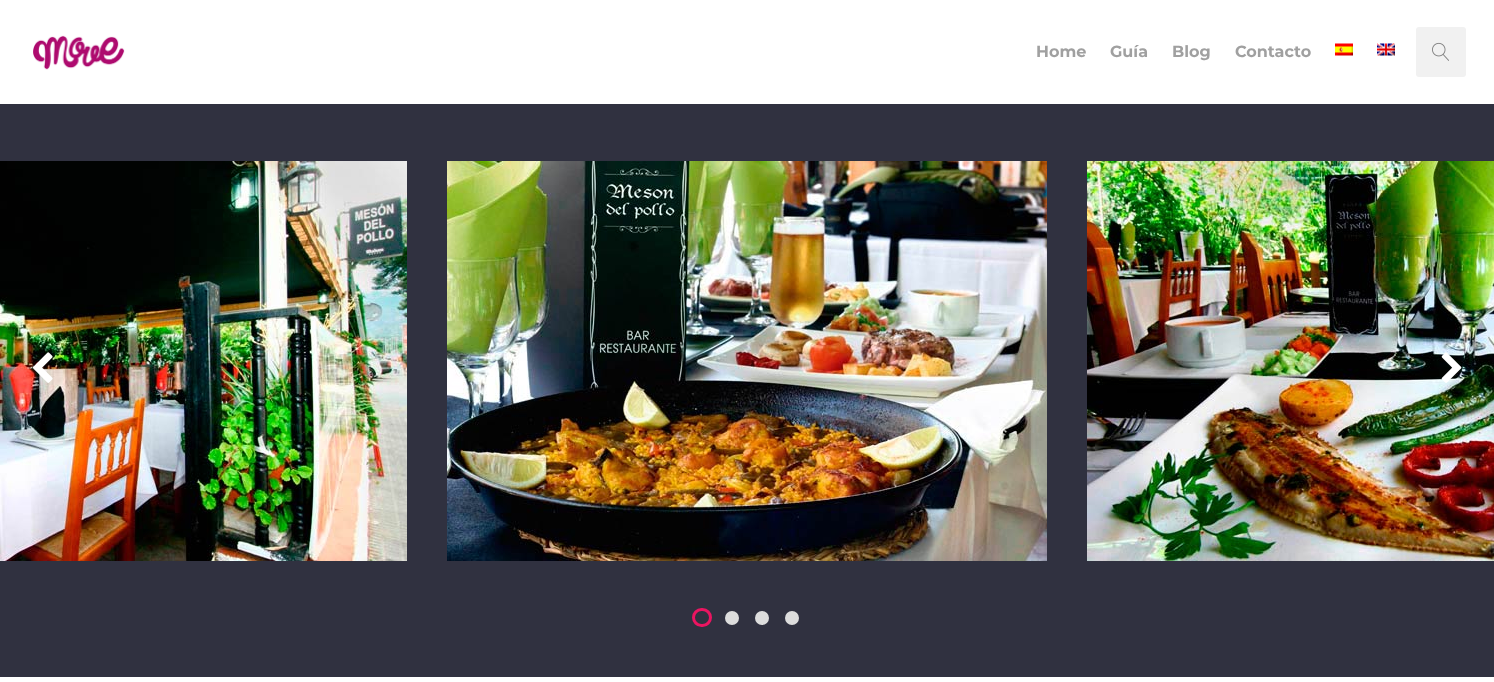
<?xml version="1.0" encoding="UTF-8"?>
<svg xmlns="http://www.w3.org/2000/svg" width="1494" height="682">
    <rect width="100%" height="100%" fill="#FFFFFF"/>
    <image x="33" y="35" width="92" height="35" href="img_01.png"/>
    <text x="1036" y="57" font-family="Montserrat" font-size="16" font-weight="700" fill="#A0A0A0">Home</text>
    <text x="1110" y="57" font-family="Montserrat" font-size="16" font-weight="700" fill="#A0A0A0">Guía</text>
    <text x="1172" y="57" font-family="Montserrat" font-size="16" font-weight="700" fill="#A0A0A0">Blog</text>
    <text x="1235" y="57" font-family="Montserrat" font-size="16" font-weight="700" fill="#A0A0A0">Contacto</text>
    <image x="1335" y="43" width="18" height="13" href="img_02.png"/>
    <image x="1377" y="43" width="18" height="13" href="img_03.png"/>
    <rect x="1416" y="27" width="50" height="50" rx="3" fill="#F1F1F1"/>
    <image x="1432" y="42" width="17" height="19" href="img_04.png"/>
    <rect x="0" y="104" width="1494" height="573" fill="#303140"/>
    <image x="0" y="161" width="407" height="400" href="img_05.png"/>
    <image x="447" y="161" width="600" height="400" href="img_06.png"/>
    <image x="1087" y="161" width="407" height="400" href="img_07.png"/>
    <image x="32" y="352" width="21" height="31" href="img_08.png"/>
    <image x="1441" y="352" width="21" height="31" href="img_09.png"/>
    <rect x="693.5" y="609.5" width="17" height="16" rx="8" fill="none" stroke="#EB1561" stroke-width="3"/>
    <circle cx="732" cy="618" r="7" fill="#DDDDDD"/>
    <circle cx="762" cy="618" r="7" fill="#DDDDDD"/>
    <circle cx="792" cy="618" r="7" fill="#DDDDDD"/>
</svg>
